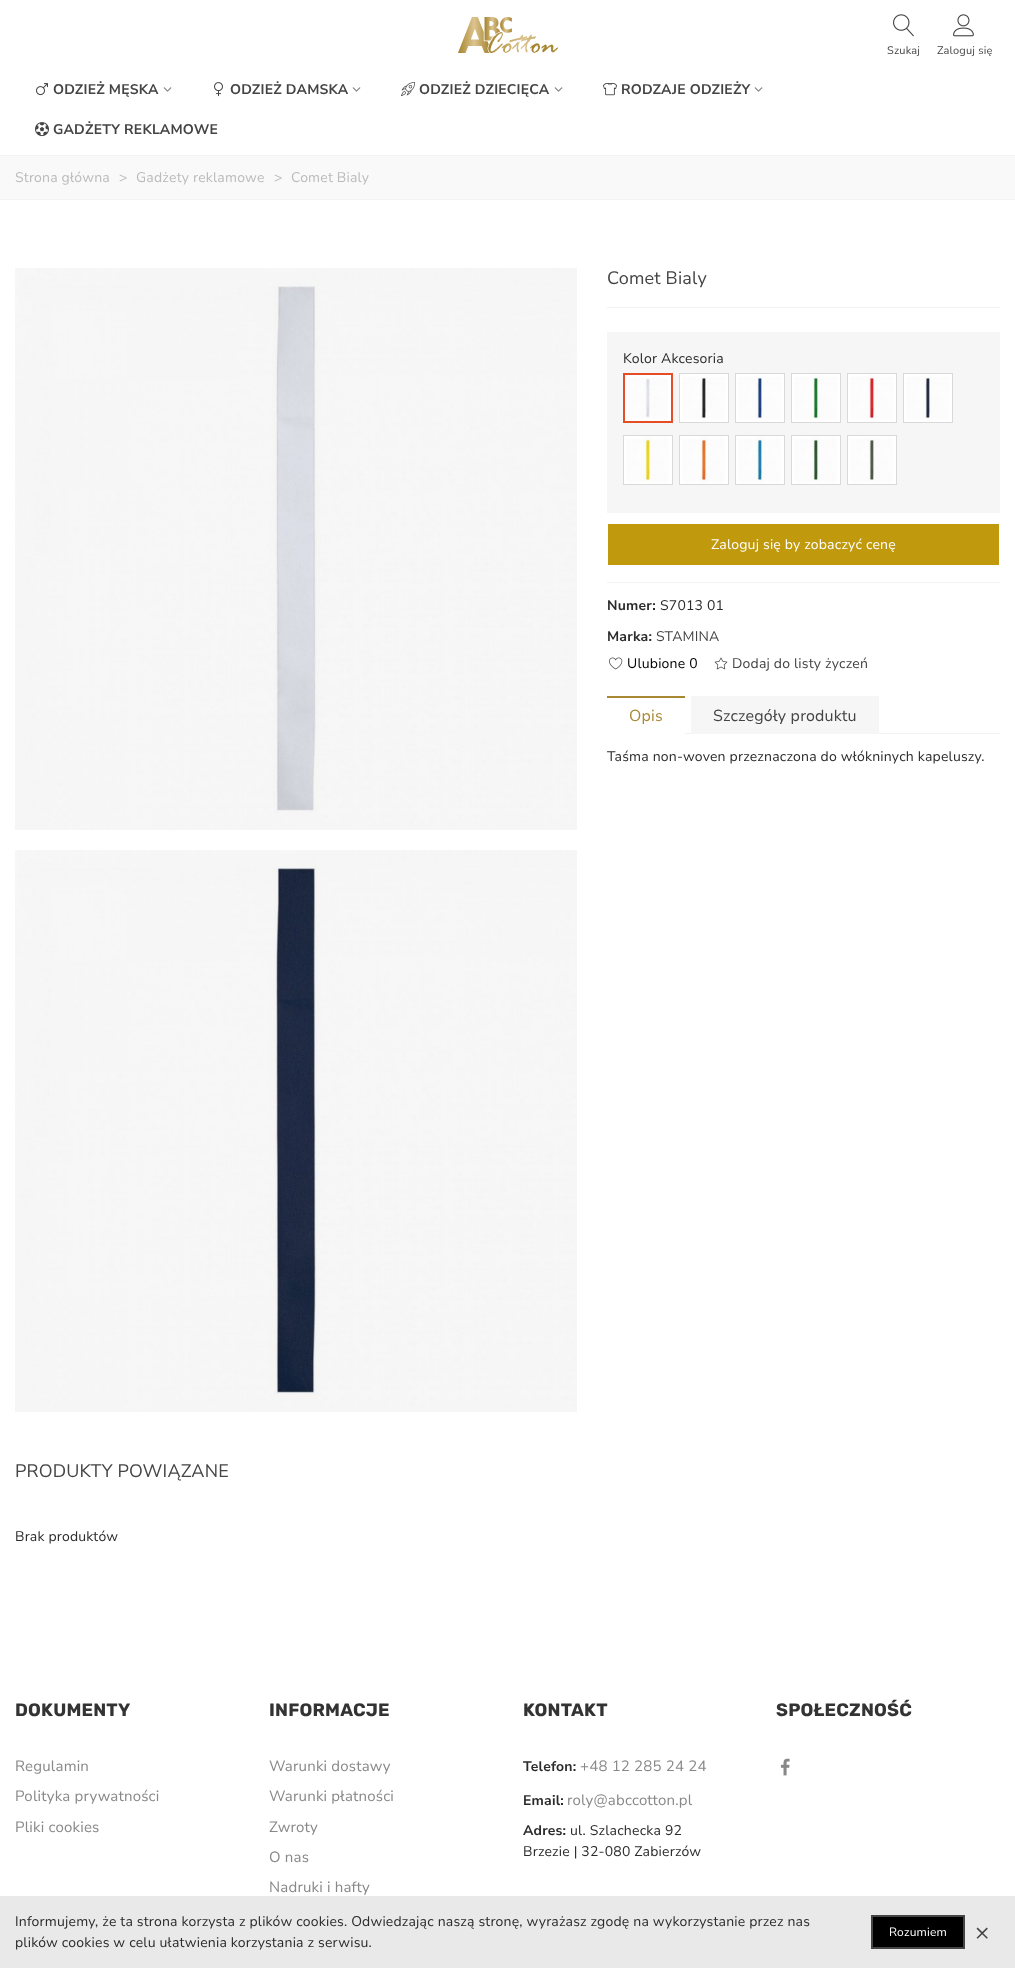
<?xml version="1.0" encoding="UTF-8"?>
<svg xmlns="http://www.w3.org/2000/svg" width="1015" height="1968">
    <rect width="100%" height="100%" fill="#FFFFFF"/>
    <image x="458" y="17" width="100" height="36" href="img_01.png"/>
    <image x="893" y="14" width="21" height="23" href="img_02.png"/>
    <text x="887" y="54" font-family="Nunito Sans" font-size="11" letter-spacing="0.2" fill="#444444">Szukaj</text>
    <image x="953" y="14" width="21" height="23" href="img_03.png"/>
    <text x="937" y="54" font-family="Nunito Sans" font-size="11" letter-spacing="0.2" fill="#444444">Zaloguj się</text>
    <image x="36" y="83" width="12" height="13" href="img_04.png"/>
    <text x="53" y="94" font-family="Nunito Sans" font-size="14" font-weight="700" letter-spacing="0.2" fill="#444444">ODZIEŻ MĘSKA</text>
    <image x="163" y="87" width="9" height="5" href="img_05.png"/>
    <image x="214" y="82" width="9" height="15" href="img_06.png"/>
    <text x="230" y="94" font-family="Nunito Sans" font-size="14" font-weight="700" letter-spacing="0.2" fill="#444444">ODZIEŻ DAMSKA</text>
    <image x="352" y="87" width="9" height="5" href="img_05.png"/>
    <image x="401" y="82" width="14" height="15" href="img_07.png"/>
    <text x="419" y="94" font-family="Nunito Sans" font-size="14" font-weight="700" letter-spacing="0.2" fill="#444444">ODZIEŻ DZIECIĘCA</text>
    <image x="554" y="87" width="9" height="5" href="img_05.png"/>
    <image x="603" y="83" width="14" height="13" href="img_08.png"/>
    <text x="621" y="94" font-family="Nunito Sans" font-size="14" font-weight="700" letter-spacing="0.2" fill="#444444">RODZAJE ODZIEŻY</text>
    <image x="754" y="87" width="9" height="5" href="img_05.png"/>
    <image x="35" y="122" width="14" height="15" href="img_09.png"/>
    <text x="53" y="134" font-family="Nunito Sans" font-size="14" font-weight="700" letter-spacing="0.2" fill="#444444">GADŻETY REKLAMOWE</text>
    <rect x="0" y="156" width="1015" height="43" fill="#F9F9F9"/>
    <rect x="0" y="155" width="1015" height="1" fill="#F3F3F3"/>
    <rect x="0" y="199" width="1015" height="1" fill="#F3F3F3"/>
    <text x="15" y="182" font-family="Nunito Sans" font-size="14" letter-spacing="0.2" fill="#BBBBBB">Strona główna</text>
    <text x="119" y="182" font-family="Nunito Sans" font-size="14" letter-spacing="0.2" fill="#BBBBBB">&gt;</text>
    <text x="136" y="182" font-family="Nunito Sans" font-size="14" letter-spacing="0.2" fill="#BBBBBB">Gadżety reklamowe</text>
    <text x="274" y="182" font-family="Nunito Sans" font-size="14" letter-spacing="0.2" fill="#BBBBBB">&gt;</text>
    <text x="291" y="182" font-family="Nunito Sans" font-size="14" letter-spacing="0.2" fill="#BBBBBB">Comet Bialy</text>
    <image x="15" y="268" width="562" height="562" href="img_10.png"/>
    <image x="15" y="850" width="562" height="562" href="img_11.png"/>
    <text x="607" y="284" font-family="Nunito Sans" font-size="18" letter-spacing="0.2" fill="#444444">Comet Bialy</text>
    <rect x="607" y="307" width="393" height="1" fill="#F2F2F2"/>
    <rect x="607" y="332" width="393" height="181" fill="#F6F6F6"/>
    <text x="623" y="363" font-family="Nunito Sans" font-size="14" letter-spacing="0.2" fill="#2B2B2B">Kolor Akcesoria</text>
    <image x="625" y="375" width="46" height="46" href="img_12.png"/>
    <rect x="624" y="374" width="48" height="48" fill="none" stroke="#E54D26" stroke-width="2"/>
    <image x="680" y="374" width="48" height="48" href="img_13.png"/>
    <rect x="679.5" y="373.5" width="49" height="49" fill="none" stroke="#D9D9D9"/>
    <image x="736" y="374" width="48" height="48" href="img_14.png"/>
    <rect x="735.5" y="373.5" width="49" height="49" fill="none" stroke="#D9D9D9"/>
    <image x="792" y="374" width="48" height="48" href="img_15.png"/>
    <rect x="791.5" y="373.5" width="49" height="49" fill="none" stroke="#D9D9D9"/>
    <image x="848" y="374" width="48" height="48" href="img_16.png"/>
    <rect x="847.5" y="373.5" width="49" height="49" fill="none" stroke="#D9D9D9"/>
    <image x="904" y="374" width="48" height="48" href="img_17.png"/>
    <rect x="903.5" y="373.5" width="49" height="49" fill="none" stroke="#D9D9D9"/>
    <image x="624" y="436" width="48" height="48" href="img_18.png"/>
    <rect x="623.5" y="435.5" width="49" height="49" fill="none" stroke="#D9D9D9"/>
    <image x="680" y="436" width="48" height="48" href="img_19.png"/>
    <rect x="679.5" y="435.5" width="49" height="49" fill="none" stroke="#D9D9D9"/>
    <image x="736" y="436" width="48" height="48" href="img_20.png"/>
    <rect x="735.5" y="435.5" width="49" height="49" fill="none" stroke="#D9D9D9"/>
    <image x="792" y="436" width="48" height="48" href="img_21.png"/>
    <rect x="791.5" y="435.5" width="49" height="49" fill="none" stroke="#D9D9D9"/>
    <image x="848" y="436" width="48" height="48" href="img_22.png"/>
    <rect x="847.5" y="435.5" width="49" height="49" fill="none" stroke="#D9D9D9"/>
    <rect x="608" y="524" width="391" height="41" fill="#C0990D"/>
    <text x="711" y="549" font-family="Nunito Sans" font-size="14" letter-spacing="0.2" fill="#FFFFFF">Zaloguj się by zobaczyć cenę</text>
    <rect x="607" y="582" width="393" height="1" fill="#F2F2F2"/>
    <text x="607" y="610" font-family="Nunito Sans" font-size="14" font-weight="700" letter-spacing="0.2" fill="#2B2B2B">Numer:</text>
    <text x="660" y="610" font-family="Nunito Sans" font-size="14" letter-spacing="0.2" fill="#2B2B2B">S7013 01</text>
    <text x="607" y="641" font-family="Nunito Sans" font-size="14" font-weight="700" letter-spacing="0.2" fill="#2B2B2B">Marka:</text>
    <text x="656" y="641" font-family="Nunito Sans" font-size="14" letter-spacing="0.2" fill="#444444">STAMINA</text>
    <image x="609" y="657" width="14" height="13" href="img_23.png"/>
    <text x="627" y="668" font-family="Nunito Sans" font-size="14" letter-spacing="0.2" fill="#000000">Ulubione 0</text>
    <image x="714" y="657" width="14" height="13" href="img_24.png"/>
    <text x="732" y="668" font-family="Nunito Sans" font-size="14" letter-spacing="0.2" fill="#444444">Dodaj do listy życzeń</text>
    <rect x="685" y="733" width="315" height="1" fill="#F2F2F2"/>
    <rect x="607" y="696" width="78" height="2" fill="#A98834"/>
    <text x="629" y="721" font-family="Nunito Sans" font-size="16" letter-spacing="0.2" fill="#A98834">Opis</text>
    <rect x="691" y="696" width="188" height="38" fill="#F6F6F6"/>
    <text x="713" y="721" font-family="Nunito Sans" font-size="16" letter-spacing="0.2" fill="#444444">Szczegóły produktu</text>
    <text x="607" y="761" font-family="Nunito Sans" font-size="14" letter-spacing="0.2" fill="#2B2B2B">Taśma non-woven przeznaczona do włókninych kapeluszy.</text>
    <text x="15" y="1477" font-family="Nunito Sans" font-size="18" letter-spacing="0.2" fill="#444444">PRODUKTY POWIĄZANE</text>
    <text x="15" y="1541" font-family="Nunito Sans" font-size="14" letter-spacing="0.2" fill="#2B2B2B">Brak produktów</text>
    <text x="15" y="1716" font-family="Rubik" font-size="18" font-weight="700" letter-spacing="0.2" fill="#333333">DOKUMENTY</text>
    <text x="15" y="1771" font-family="Nunito Sans" font-size="15" letter-spacing="0.2" fill="#888888">Regulamin</text>
    <text x="15" y="1801" font-family="Nunito Sans" font-size="15" letter-spacing="0.2" fill="#888888">Polityka prywatności</text>
    <text x="15" y="1832" font-family="Nunito Sans" font-size="15" letter-spacing="0.2" fill="#888888">Pliki cookies</text>
    <text x="269" y="1716" font-family="Rubik" font-size="18" font-weight="700" letter-spacing="0.2" fill="#333333">INFORMACJE</text>
    <text x="269" y="1771" font-family="Nunito Sans" font-size="15" letter-spacing="0.2" fill="#888888">Warunki dostawy</text>
    <text x="269" y="1801" font-family="Nunito Sans" font-size="15" letter-spacing="0.2" fill="#888888">Warunki płatności</text>
    <text x="269" y="1832" font-family="Nunito Sans" font-size="15" letter-spacing="0.2" fill="#888888">Zwroty</text>
    <text x="269" y="1862" font-family="Nunito Sans" font-size="15" letter-spacing="0.2" fill="#888888">O nas</text>
    <text x="269" y="1892" font-family="Nunito Sans" font-size="15" letter-spacing="0.2" fill="#888888">Nadruki i hafty</text>
    <text x="523" y="1716" font-family="Rubik" font-size="18" font-weight="700" letter-spacing="0.2" fill="#333333">KONTAKT</text>
    <text x="523" y="1771" font-family="Nunito Sans" font-size="14" font-weight="700" letter-spacing="0.2" fill="#2B2B2B">Telefon:</text>
    <text x="580" y="1771" font-family="Nunito Sans" font-size="15" letter-spacing="0.2" fill="#888888">+48 12 285 24 24</text>
    <text x="523" y="1805" font-family="Nunito Sans" font-size="14" font-weight="700" letter-spacing="0.2" fill="#2B2B2B">Email:</text>
    <text x="567" y="1805" font-family="Nunito Sans" font-size="15" letter-spacing="0.2" fill="#888888">roly@abccotton.pl</text>
    <text x="523" y="1835" font-family="Nunito Sans" font-size="14" font-weight="700" letter-spacing="0.2" fill="#2B2B2B">Adres:</text>
    <text x="570" y="1835" font-family="Nunito Sans" font-size="14" letter-spacing="0.2" fill="#2B2B2B">ul. Szlachecka 92</text>
    <text x="523" y="1856" font-family="Nunito Sans" font-size="14" letter-spacing="0.2" fill="#2B2B2B">Brzezie | 32-080 Zabierzów</text>
    <text x="776" y="1716" font-family="Rubik" font-size="18" font-weight="700" letter-spacing="0.2" fill="#333333">SPOŁECZNOŚĆ</text>
    <image x="780" y="1758" width="10" height="18" href="img_25.png"/>
    <rect x="0" y="1896" width="1015" height="72" fill="#E9E9E9"/>
    <text font-family="Nunito Sans" font-size="14" letter-spacing="0.2" fill="#2B2B2B">
        <tspan x="15" y="1926">Informujemy, że ta strona korzysta z plików cookies. Odwiedzając naszą stronę, wyrażasz zgodę na wykorzystanie przez nas</tspan>
        <tspan x="15" y="1947">plików cookies w celu ułatwienia korzystania z serwisu.</tspan>
    </text>
    <rect x="872" y="1916" width="92" height="32" fill="#000000" stroke="#444444" stroke-width="2"/>
    <text x="889" y="1936" font-family="Nunito Sans" font-size="12" letter-spacing="0.2" fill="#FFFFFF">Rozumiem</text>
    <text x="975" y="1940" font-family="Nunito Sans" font-size="24" letter-spacing="0.2" fill="#444444">×</text>
</svg>
